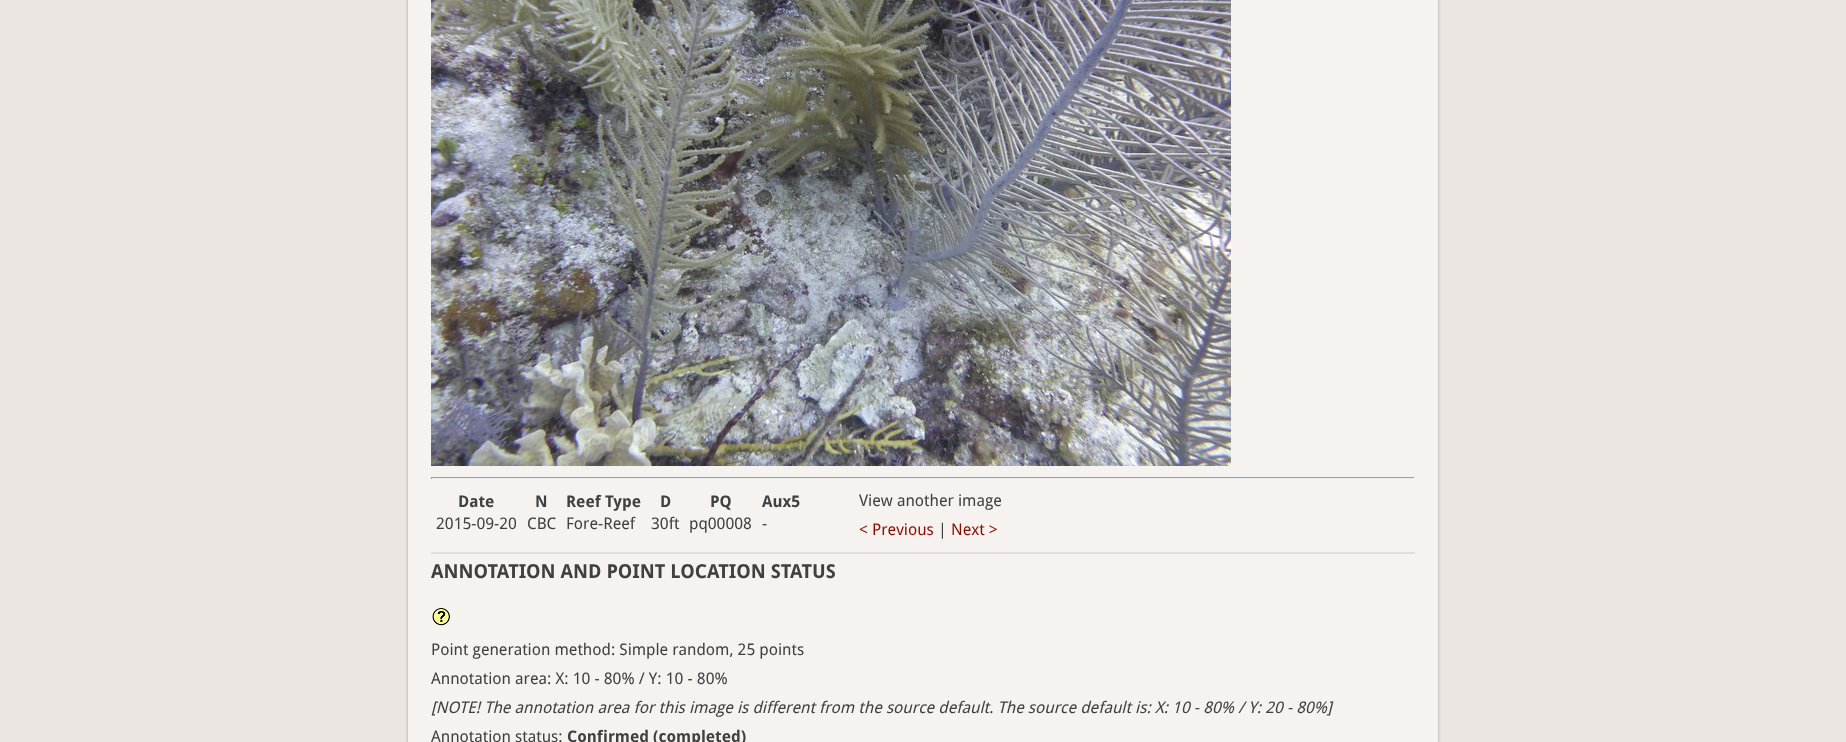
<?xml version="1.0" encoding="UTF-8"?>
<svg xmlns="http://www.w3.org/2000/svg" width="1846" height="742">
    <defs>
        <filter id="blur1" x="-50%" y="-200%" width="200%" height="500%"><feGaussianBlur stdDeviation="1.5"/></filter>
    </defs>
    <rect width="100%" height="100%" fill="#EAE5E1"/>
    <rect x="408" y="-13" width="1030" height="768" rx="8" fill="#999999" filter="url(#blur1)"/>
    <rect x="408" y="0" width="1030" height="742" fill="#F5F2F0"/>
    <image x="431" y="0" width="800" height="466" href="img_01.png"/>
    <rect x="431" y="477" width="984" height="1" fill="#9F9F9F"/>
    <rect x="1414" y="477" width="1" height="2" fill="#EEEEEE"/>
    <rect x="431" y="478" width="984" height="1" fill="#EEEEEE"/>
    <rect x="431" y="477" width="1" height="2" fill="#9F9F9F"/>
    <text x="458" y="507" font-family="Droid Sans" font-size="16" font-weight="700" fill="#404040">Date</text>
    <text x="535" y="507" font-family="Droid Sans" font-size="16" font-weight="700" fill="#404040">N</text>
    <text x="566" y="507" font-family="Droid Sans" font-size="16" font-weight="700" fill="#404040">Reef Type</text>
    <text x="660" y="507" font-family="Droid Sans" font-size="16" font-weight="700" fill="#404040">D</text>
    <text x="710" y="507" font-family="Droid Sans" font-size="16" font-weight="700" fill="#404040">PQ</text>
    <text x="762" y="507" font-family="Droid Sans" font-size="16" font-weight="700" fill="#404040">Aux5</text>
    <text x="436" y="529" font-family="Droid Sans" font-size="16" fill="#404040">2015-09-20</text>
    <text x="527" y="529" font-family="Droid Sans" font-size="16" fill="#404040">CBC</text>
    <text x="566" y="529" font-family="Droid Sans" font-size="16" fill="#404040">Fore-Reef</text>
    <text x="651" y="529" font-family="Droid Sans" font-size="16" fill="#404040">30ft</text>
    <text x="689" y="529" font-family="Droid Sans" font-size="16" fill="#404040">pq00008</text>
    <text x="762" y="529" font-family="Droid Sans" font-size="16" fill="#404040">-</text>
    <text x="859" y="506" font-family="Droid Sans" font-size="16" fill="#404040">View another image</text>
    <text x="859" y="535" font-family="Droid Sans" font-size="16" fill="#8A0E00">&lt; Previous</text>
    <text x="938" y="535" font-family="Droid Sans" font-size="16" fill="#404040">|</text>
    <text x="951" y="535" font-family="Droid Sans" font-size="16" fill="#8A0E00">Next &gt;</text>
    <rect x="431" y="552" width="984" height="2" fill="#DEDEDE"/>
    <text x="431" y="578" font-family="Droid Sans" font-size="19.2" font-weight="700" fill="#404040">ANNOTATION AND POINT LOCATION STATUS</text>
    <image x="432" y="608" width="18" height="18" href="img_02.png"/>
    <text font-family="Droid Sans" font-size="16" fill="#404040">
        <tspan x="431" y="655">Point generation method: Simple random, 25 points</tspan>
        <tspan x="431" y="684">Annotation area: X: 10 - 80% / Y: 10 - 80%</tspan>
    </text>
    <text x="431" y="713" font-family="Droid Sans" font-size="16" font-style="italic" fill="#404040">[NOTE! The annotation area for this image is different from the source default. The source default is: X: 10 - 80% / Y: 20 - 80%]</text>
    <text x="431" y="742" font-family="Droid Sans" font-size="16" fill="#404040">Annotation status:</text>
    <text x="567" y="742" font-family="Droid Sans" font-size="16" font-weight="700" fill="#404040">Confirmed (completed)</text>
</svg>
